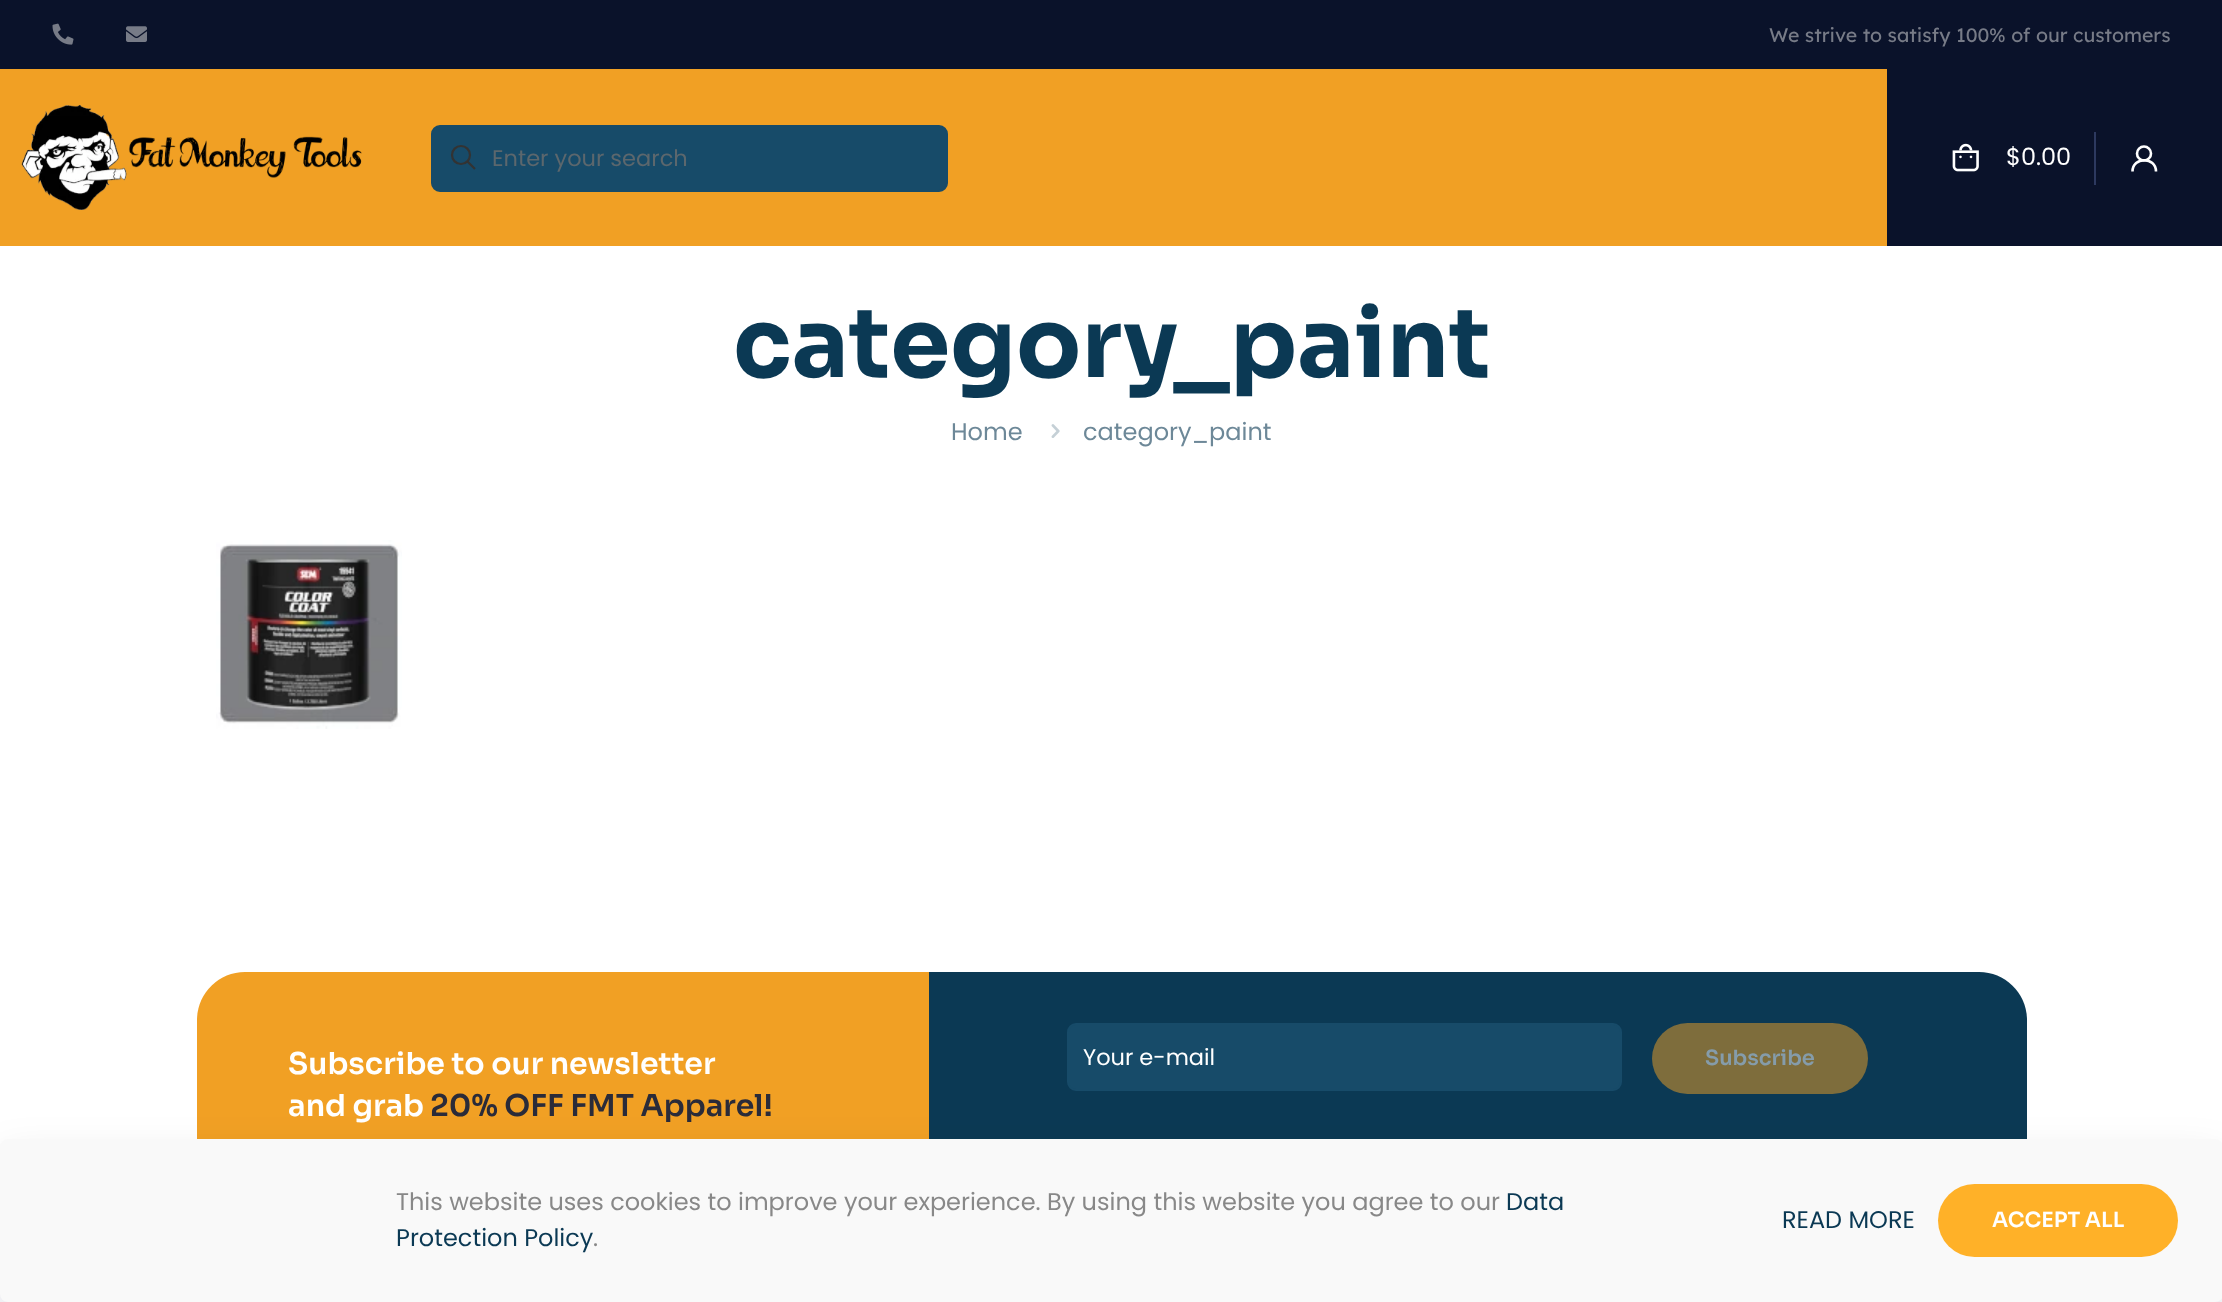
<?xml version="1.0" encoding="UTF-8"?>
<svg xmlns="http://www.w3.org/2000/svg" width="2222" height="1302">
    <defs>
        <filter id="blur1" x="-50%" y="-200%" width="200%" height="500%"><feGaussianBlur stdDeviation="22.5"/></filter>
    </defs>
    <rect width="100%" height="100%" fill="#FFFFFF"/>
    <rect x="0" y="0" width="2222" height="69" fill="#0A122A"/>
    <image x="52" y="23" width="22" height="22" href="img_01.png"/>
    <image x="126" y="26" width="21" height="16" href="img_02.png"/>
    <text x="1769" y="42" font-family="Lexend" font-size="19.5" fill="#777B87">We strive to satisfy 100% of our customers</text>
    <rect x="0" y="69" width="1887" height="177" fill="#F1A024"/>
    <image x="21" y="105" width="341" height="105" href="img_03.png"/>
    <rect x="432" y="126" width="515" height="65" rx="8" fill="#174B69" stroke="#174B69" stroke-width="2"/>
    <circle cx="461" cy="155" r="9" fill="none" stroke="#333333" stroke-width="2.2"/>
    <path d="M 467.5 161.5 L 475 169" fill="none" stroke="#333333" stroke-width="2.2"/>
    <text x="492" y="166" font-family="Poppins" font-size="22.5" fill="#5C676D">Enter your search</text>
    <rect x="1887" y="69" width="335" height="177" fill="#0A122A"/>
    <rect x="2094" y="132" width="2" height="53" fill="#2D395F"/>
    <image x="1952" y="143" width="27" height="29" href="img_04.png"/>
    <text x="2006" y="165" font-family="Poppins" font-size="24" fill="#FFFFFF">$0.00</text>
    <circle cx="2144" cy="153.5" r="7" fill="none" stroke="#FFFFFF" stroke-width="2.6"/>
    <path d="M 2156 171.5 C 2156 156.5 2132.5 156.5 2132.5 171.5" fill="none" stroke="#FFFFFF" stroke-width="2.6"/>
    <text x="733" y="377" font-family="Sora" font-size="96" font-weight="700" fill="#0B3954">category_paint</text>
    <text x="951" y="440" font-family="Poppins" font-size="24" fill="#6D8898">Home</text>
    <image x="1051" y="424" width="9" height="14" href="img_05.png"/>
    <text x="1083" y="440" font-family="Poppins" font-size="24" fill="#6D8898">category_paint</text>
    <image x="216" y="540" width="186" height="189" href="img_06.png"/>
    <path d="M 245 972 H 929 V 1200 H 245 C 218.5 1200 197 1178.5 197 1152 V 1020 C 197 993.5 218.5 972 245 972 Z" fill="#F1A024"/>
    <text font-family="Sora" font-size="30" font-weight="600" fill="#FFFFFF">
        <tspan x="288" y="1074">Subscribe to our newsletter</tspan>
        <tspan x="288" y="1116">and grab</tspan>
    </text>
    <text x="430" y="1116" font-family="Sora" font-size="30" font-weight="600" fill="#2A2B39">20% OFF FMT Apparel!</text>
    <path d="M 929 972 H 1979 C 2005.5 972 2027 993.5 2027 1020 V 1152 C 2027 1178.5 2005.5 1200 1979 1200 H 929 Z" fill="#0B3954"/>
    <rect x="1068" y="1024" width="553" height="66" rx="8" fill="#174B69" stroke="#174B69" stroke-width="2"/>
    <text x="1083" y="1065" font-family="Poppins" font-size="22.5" fill="#FFFFFF">Your e-mail</text>
    <rect x="1652" y="1023" width="216" height="71" rx="35.5" fill="#7E6D3C"/>
    <text x="1705" y="1065" font-family="Sora" font-size="21" font-weight="600" fill="#859CAA">Subscribe</text>
    <rect x="0" y="1161" width="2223" height="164" rx="8" fill="#010727" fill-opacity="0.13" filter="url(#blur1)"/>
    <rect x="0" y="1139" width="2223" height="163" rx="8" fill="#F9F9F9"/>
    <text x="396" y="1210" font-family="Poppins" font-size="24" fill="#888888">This website uses cookies to improve your experience. By using this website you agree to our</text>
    <text x="1506" y="1210" font-family="Poppins" font-size="24" fill="#0B3954">Data</text>
    <text x="396" y="1246" font-family="Poppins" font-size="24" fill="#0B3954">Protection Policy</text>
    <text x="593" y="1246" font-family="Poppins" font-size="24" fill="#888888">.</text>
    <text x="1782" y="1228" font-family="Poppins" font-size="24" fill="#0B3954">READ MORE</text>
    <rect x="1938" y="1184" width="240" height="73" rx="36.5" fill="#FFB128"/>
    <text x="1992" y="1227" font-family="Sora" font-size="21" font-weight="600" fill="#FFFFFF">ACCEPT ALL</text>
</svg>
